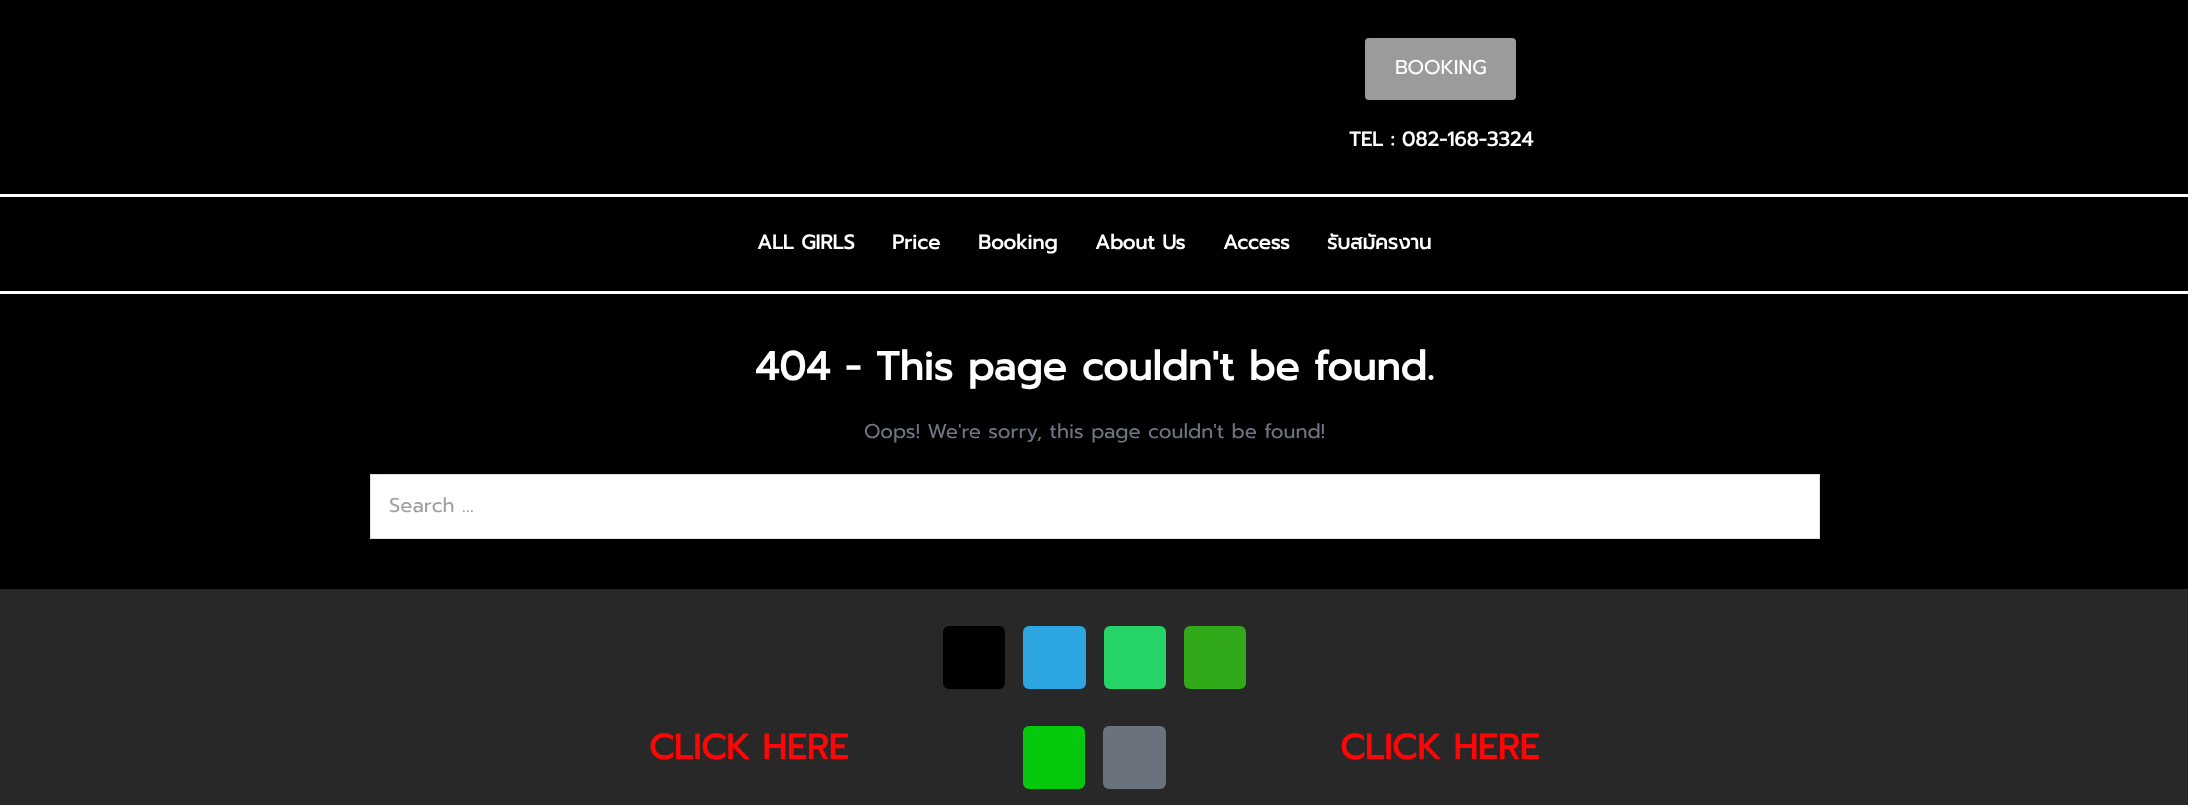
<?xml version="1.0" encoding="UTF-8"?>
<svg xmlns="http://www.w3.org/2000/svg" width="2188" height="805">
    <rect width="100%" height="100%" fill="#000000"/>
    <rect x="1365" y="38" width="151" height="62" rx="4" fill="#9B9B9B"/>
    <text x="1395" y="74" font-family="Prompt" font-size="20" fill="#FFFFFF">BOOKING</text>
    <text x="1349" y="146" font-family="Prompt" font-size="20" font-weight="700" fill="#FFFFFF">TEL : 082-168-3324</text>
    <rect x="0" y="194" width="2188" height="3" fill="#FFFFFF"/>
    <rect x="0" y="291" width="2188" height="3" fill="#FFFFFF"/>
    <text x="757" y="249" font-family="Prompt" font-size="20" font-weight="700" fill="#FFFFFF">ALL GIRLS</text>
    <text x="892" y="249" font-family="Prompt" font-size="20" font-weight="700" fill="#FFFFFF">Price</text>
    <text x="978" y="249" font-family="Prompt" font-size="20" font-weight="700" fill="#FFFFFF">Booking</text>
    <text x="1095" y="249" font-family="Prompt" font-size="20" font-weight="700" fill="#FFFFFF">About Us</text>
    <text x="1223" y="249" font-family="Prompt" font-size="20" font-weight="700" fill="#FFFFFF">Access</text>
    <text x="1327" y="249" font-family="Prompt" font-size="20" font-weight="700" fill="#FFFFFF">รับสมัครงาน</text>
    <text x="755" y="380" font-family="Prompt" font-size="40" font-weight="700" fill="#FFFFFF">404 - This page couldn't be found.</text>
    <text x="864" y="438" font-family="Prompt" font-size="20" fill="#6D7680">Oops! We're sorry, this page couldn't be found!</text>
    <rect x="370.5" y="474.5" width="1449" height="64" fill="#FFFFFF" stroke="#DEDEE5"/>
    <text x="389" y="512" font-family="Prompt" font-size="20" fill="#9FA1A4">Search …</text>
    <rect x="0" y="589" width="2188" height="216" fill="#292828"/>
    <rect x="943" y="626" width="62" height="63" rx="6" fill="#000000"/>
    <rect x="1023" y="626" width="63" height="63" rx="6" fill="#2CA5E0"/>
    <rect x="1104" y="626" width="62" height="63" rx="6" fill="#25D366"/>
    <rect x="1184" y="626" width="62" height="63" rx="6" fill="#31A918"/>
    <text x="649" y="759" font-family="Prompt" font-size="35" font-weight="700" fill="#FF0505">CLICK HERE</text>
    <rect x="1023" y="726" width="62" height="63" rx="6" fill="#05C90D"/>
    <rect x="1103" y="726" width="63" height="63" rx="6" fill="#69727D"/>
    <text x="1340" y="759" font-family="Prompt" font-size="35" font-weight="700" fill="#FF0505">CLICK HERE</text>
</svg>
